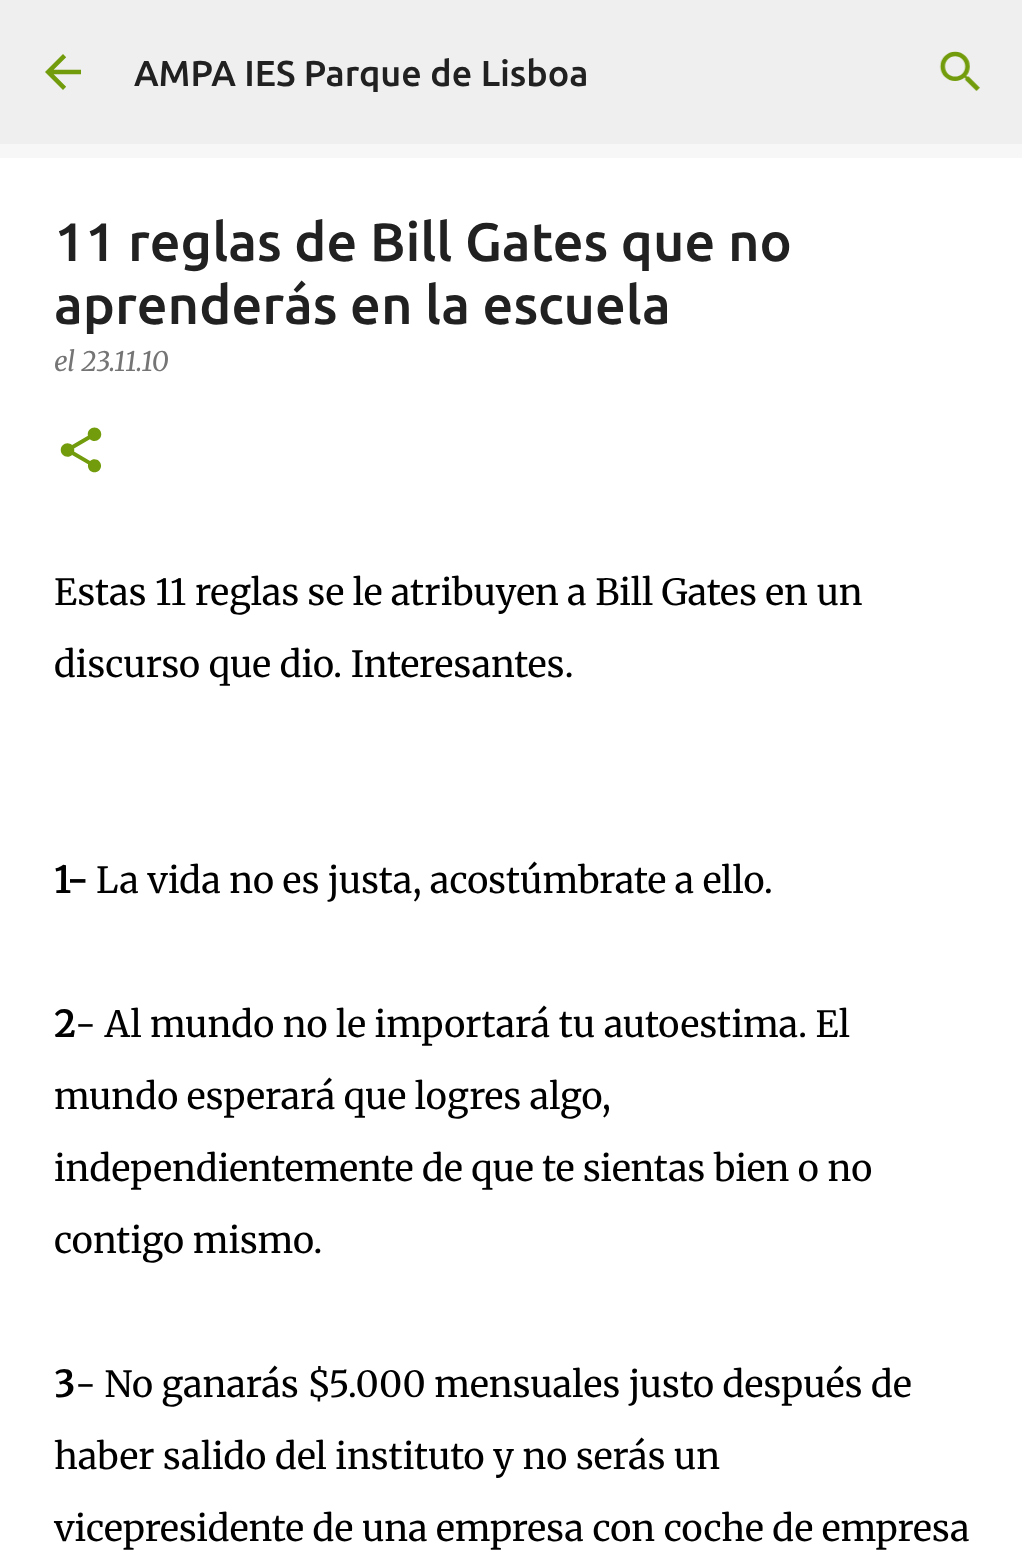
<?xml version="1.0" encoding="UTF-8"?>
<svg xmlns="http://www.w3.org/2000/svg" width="1022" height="1561">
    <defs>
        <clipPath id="clip1"><rect x="126" y="52" width="772" height="40"/></clipPath>
    </defs>
    <rect width="100%" height="100%" fill="#F7F7F7"/>
    <rect x="0" y="0" width="1022" height="144" fill="#EFEFEF"/>
    <image x="45" y="54" width="36" height="36" href="img_01.png"/>
    <g clip-path="url(#clip1)">
        <text x="134" y="86" font-family="Ubuntu" font-size="36" font-weight="500" fill="#212121">AMPA IES Parque de Lisboa</text>
    </g>
    <image x="939" y="51" width="41" height="40" href="img_02.png"/>
    <rect x="0" y="158" width="1022" height="1403" fill="#FFFFFF"/>
    <text font-family="Ubuntu" font-size="54" font-weight="500" fill="#212121">
        <tspan x="54" y="261">11 reglas de Bill Gates que no</tspan>
        <tspan x="54" y="324">aprenderás en la escuela</tspan>
    </text>
    <text x="54" y="371" font-family="Merriweather" font-size="27" font-weight="300" font-style="italic" fill="#757575">el 23.11.10</text>
    <image x="60" y="427" width="42" height="46" href="img_03.png"/>
    <text x="54" y="605" font-family="Merriweather" font-size="36" font-weight="300" fill="#000000">Estas 11 reglas se le atribuyen a Bill Gates en un</text>
    <text x="54" y="677" font-family="Merriweather" font-size="36" font-weight="300" fill="#000000">discurso que dio. Interesantes.</text>
    <text x="54" y="893" font-family="Merriweather" font-size="36" font-weight="700" fill="#000000">1-</text>
    <text x="96" y="893" font-family="Merriweather" font-size="36" font-weight="300" fill="#000000">La vida no es justa, acostúmbrate a ello.</text>
    <text x="54" y="1037" font-family="Merriweather" font-size="36" font-weight="700" fill="#000000">2</text>
    <text x="75" y="1037" font-family="Merriweather" font-size="36" font-weight="300" fill="#000000">- Al mundo no le importará tu autoestima. El</text>
    <text x="54" y="1109" font-family="Merriweather" font-size="36" font-weight="300" fill="#000000">mundo esperará que logres algo,</text>
    <text x="54" y="1181" font-family="Merriweather" font-size="36" font-weight="300" fill="#000000">independientemente de que te sientas bien o no</text>
    <text x="54" y="1253" font-family="Merriweather" font-size="36" font-weight="300" fill="#000000">contigo mismo.</text>
    <text x="54" y="1397" font-family="Merriweather" font-size="36" font-weight="700" fill="#000000">3</text>
    <text x="75" y="1397" font-family="Merriweather" font-size="36" font-weight="300" fill="#000000">- No ganarás $5.000 mensuales justo después de</text>
    <text x="54" y="1469" font-family="Merriweather" font-size="36" font-weight="300" fill="#000000">haber salido del instituto y no serás un</text>
    <text x="54" y="1541" font-family="Merriweather" font-size="36" font-weight="300" fill="#000000">vicepresidente de una empresa con coche de empresa</text>
</svg>
